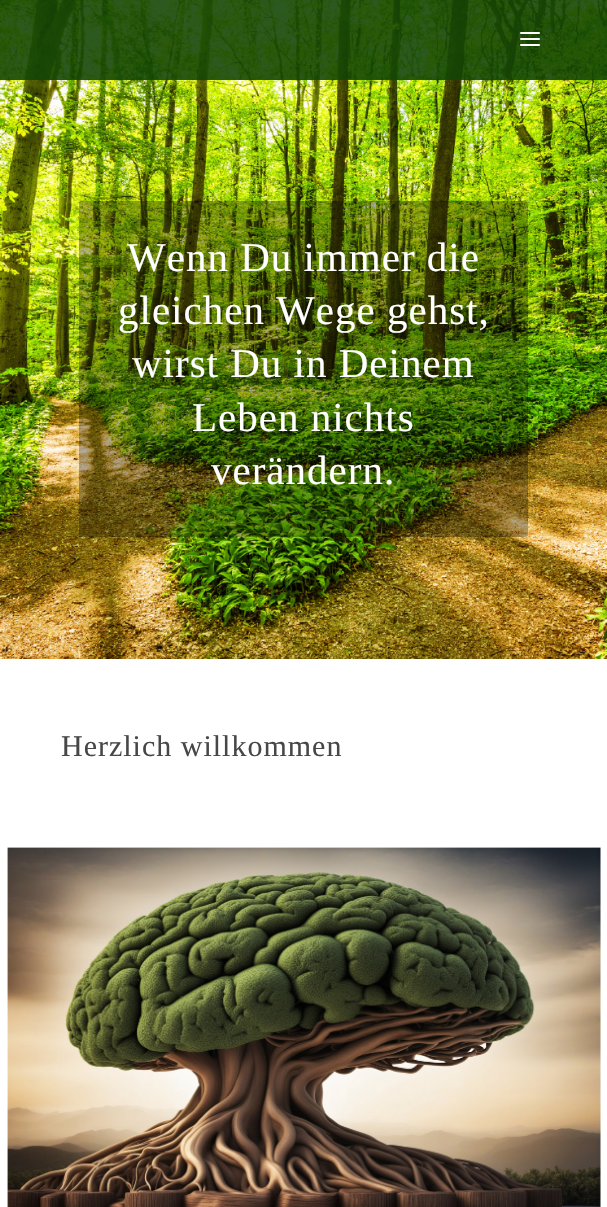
#include "include/core/SkBlurTypes.h"
#include "include/core/SkCanvas.h"
#include "include/core/SkData.h"
#include "include/core/SkFont.h"
#include "include/core/SkFontMgr.h"
#include "include/core/SkImage.h"
#include "include/core/SkMaskFilter.h"
#include "include/core/SkPaint.h"
#include "include/core/SkPathBuilder.h"
#include "include/core/SkTextBlob.h"
#include "include/effects/SkDashPathEffect.h"
#include "include/effects/SkGradientShader.h"
#include "include/utils/SkParsePath.h"

extern sk_sp<SkFontMgr> fontMgr;

static SkFont font(const char* family, int weight, float size, bool italic = false) {
    SkFontStyle style(weight, SkFontStyle::kNormal_Width,
        italic ? SkFontStyle::kItalic_Slant : SkFontStyle::kUpright_Slant);
    SkFont result(fontMgr->matchFamilyStyle(family, style), size);
    result.setSubpixel(true);
    return result;
}

static void drawTracked(SkCanvas* canvas, const char* s, float x, float y, const SkFont& font, const SkPaint& ink, float letter, float word) {
    std::vector<SkGlyphID> glyphs(font.countText(s, strlen(s), SkTextEncoding::kUTF8));
    std::vector<float> xs(glyphs.size());
    font.textToGlyphs(s, strlen(s), SkTextEncoding::kUTF8, glyphs);
    font.getXPos(glyphs, xs, x);
    float extra = 0;
    for (size_t i = 0; i < glyphs.size(); i++) {
        xs[i] += extra;
        extra += letter + word * (glyphs[i] == font.unicharToGlyph(' '));
    }
    canvas->drawTextBlob(SkTextBlob::MakeFromPosHGlyphs(glyphs, xs, y, font), 0, 0, ink);
}

static void fillRect(SkCanvas* canvas, float x, float y, float w, float h, SkColor color) {
    SkPaint ink(SkColor4f::FromColor(color));
    ink.setAntiAlias(true);
    canvas->drawRect(SkRect::MakeXYWH(x, y, w, h), ink);
}

static void fillRRect(SkCanvas* canvas, float x, float y, float w, float h, float radius, SkColor color) {
    SkPaint ink(SkColor4f::FromColor(color));
    ink.setAntiAlias(true);
    canvas->drawRoundRect(SkRect::MakeXYWH(x, y, w, h), radius, radius, ink);
}

static void drawPhoto(SkCanvas* canvas, const char* path, float x, float y, float w, float h) {
    auto image = SkImages::DeferredFromEncodedData(SkData::MakeFromFileName(path));
    canvas->drawImageRect(image, SkRect::MakeXYWH(x, y, w, h), SkSamplingOptions());
}

void draw(SkCanvas* canvas) {
    SkPaint paint;
    paint.setAntiAlias(true);
    canvas->clear(0xFFFFFFFF);
    drawPhoto(canvas, "assets/img2.png", 0, 0, 607, 659);
    fillRect(canvas, 0, 0, 607, 80, 0xE3124404);
    drawPhoto(canvas, "assets/img1.png", 520, 32, 20, 14);
    fillRRect(canvas, 79, 201, 449, 336, 3, 0x4D000000);
    SkFont font1 = font("Liberation Serif", 400, 41);
    paint.setColor(0xFFFFFFFF);
    drawTracked(canvas, "Wenn Du immer die", 127, 271, font1, paint, 1, 0);
    drawTracked(canvas, "gleichen Wege gehst,", 118, 324, font1, paint, 1, 0);
    drawTracked(canvas, "wirst Du in Deinem", 132, 377, font1, paint, 1, 0);
    drawTracked(canvas, "Leben nichts", 192, 431, font1, paint, 1, 0);
    drawTracked(canvas, "verändern.", 211, 484, font1, paint, 1, 0);
    SkFont font2 = font("Liberation Serif", 400, 30);
    paint.setColor(0xFF474747);
    drawTracked(canvas, "Herzlich willkommen", 61, 756, font2, paint, 1, 0);
    drawPhoto(canvas, "assets/img3.png", 7, 847, 594, 360);
}
